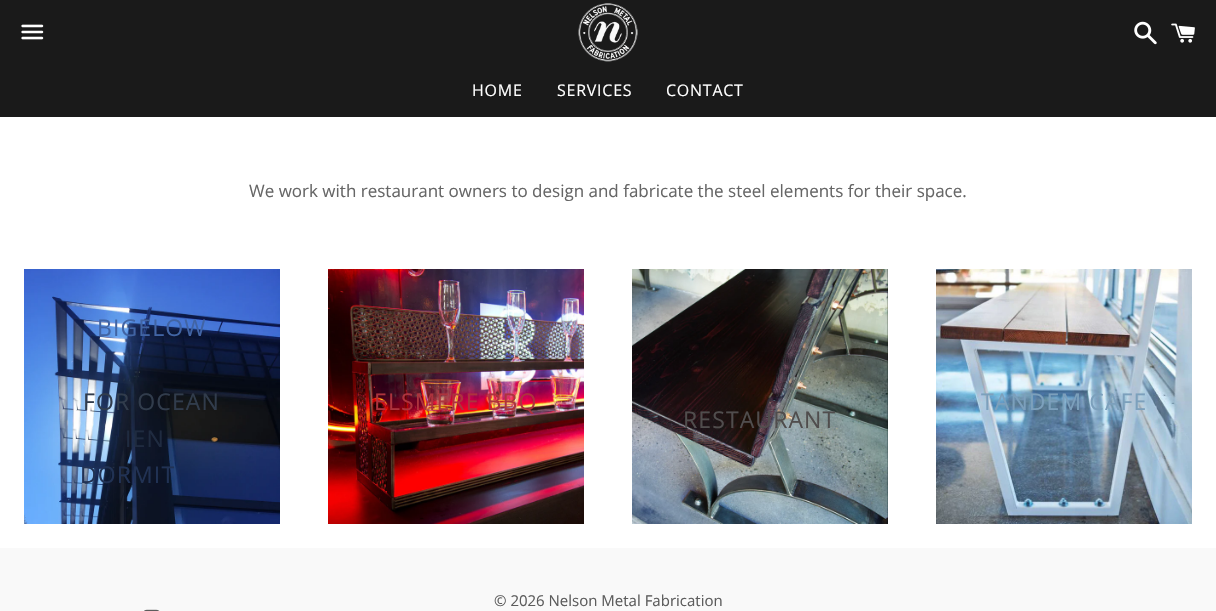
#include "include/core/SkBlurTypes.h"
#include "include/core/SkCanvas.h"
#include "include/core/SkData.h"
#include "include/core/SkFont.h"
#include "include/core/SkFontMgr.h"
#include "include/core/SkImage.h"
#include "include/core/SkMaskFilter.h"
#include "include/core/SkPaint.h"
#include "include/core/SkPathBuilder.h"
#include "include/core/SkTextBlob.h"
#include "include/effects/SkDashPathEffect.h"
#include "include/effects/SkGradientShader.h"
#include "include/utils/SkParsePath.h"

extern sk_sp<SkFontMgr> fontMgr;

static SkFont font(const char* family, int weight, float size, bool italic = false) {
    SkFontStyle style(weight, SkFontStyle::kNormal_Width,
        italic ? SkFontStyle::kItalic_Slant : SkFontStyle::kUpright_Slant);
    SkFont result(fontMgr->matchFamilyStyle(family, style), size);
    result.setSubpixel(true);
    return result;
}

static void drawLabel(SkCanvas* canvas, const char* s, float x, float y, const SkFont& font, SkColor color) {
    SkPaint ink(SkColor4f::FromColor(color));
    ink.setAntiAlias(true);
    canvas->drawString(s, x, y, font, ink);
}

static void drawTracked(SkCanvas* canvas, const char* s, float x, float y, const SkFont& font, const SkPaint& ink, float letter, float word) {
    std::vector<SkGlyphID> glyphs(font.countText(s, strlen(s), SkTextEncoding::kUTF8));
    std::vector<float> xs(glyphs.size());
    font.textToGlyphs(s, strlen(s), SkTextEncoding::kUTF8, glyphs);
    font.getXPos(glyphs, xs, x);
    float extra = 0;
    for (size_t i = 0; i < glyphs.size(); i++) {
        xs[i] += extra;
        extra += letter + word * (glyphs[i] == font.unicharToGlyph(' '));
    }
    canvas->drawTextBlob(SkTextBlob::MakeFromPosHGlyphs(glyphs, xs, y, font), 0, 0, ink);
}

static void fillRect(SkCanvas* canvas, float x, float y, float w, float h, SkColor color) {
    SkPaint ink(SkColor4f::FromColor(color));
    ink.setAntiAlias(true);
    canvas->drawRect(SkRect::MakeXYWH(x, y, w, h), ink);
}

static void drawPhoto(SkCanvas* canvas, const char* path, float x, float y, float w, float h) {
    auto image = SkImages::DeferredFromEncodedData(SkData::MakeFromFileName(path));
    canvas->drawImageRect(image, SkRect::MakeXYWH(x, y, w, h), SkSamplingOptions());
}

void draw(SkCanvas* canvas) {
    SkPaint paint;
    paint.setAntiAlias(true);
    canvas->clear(0xFFFFFFFF);
    fillRect(canvas, 0, 0, 1216, 117, 0xFF1A1A1A);
    drawPhoto(canvas, "assets/img1.png", 21, 24, 23, 16);
    drawPhoto(canvas, "assets/img2.png", 578, 3, 60, 59);
    drawPhoto(canvas, "assets/img3.png", 1134, 21, 23, 24);
    drawPhoto(canvas, "assets/img4.png", 1171, 23, 24, 20);
    SkFont font1 = font("Open Sans", 400, 16);
    paint.setColor(0xFFFFFFFF);
    drawTracked(canvas, "HOME", 472, 96, font1, paint, 0.75f, 0);
    drawTracked(canvas, "SERVICES", 557, 96, font1, paint, 0.75f, 0);
    drawTracked(canvas, "CONTACT", 666, 96, font1, paint, 0.75f, 0);
    SkFont font2 = font("Open Sans", 400, 17);
    drawLabel(canvas, "We work with restaurant owners to design and fabricate the steel elements for their space.", 249, 197, font2, 0xFF666666);
    drawPhoto(canvas, "assets/img5.png", 24, 269, 256, 255);
    SkFont font3 = font("Open Sans", 400, 23);
    paint.setColor(0xFF4164A4);
    drawTracked(canvas, "BIGELOW", 97, 336, font3, paint, 1.1f, 0);
    paint.setColor(0xFF313C4C);
    drawTracked(canvas, "FOR OCEAN", 83, 410, font3, paint, 1.1f, 0);
    paint.setColor(0xFF1F2B40);
    drawTracked(canvas, "IEN", 125, 447, font3, paint, 1.1f, 0);
    paint.setColor(0xFF213254);
    drawTracked(canvas, "DORMIT", 80, 483, font3, paint, 1.1f, 0);
    drawPhoto(canvas, "assets/img6.png", 328, 269, 256, 255);
    paint.setColor(0xFFAD333D);
    drawTracked(canvas, "ELSMERE BBQ", 374, 410, font3, paint, 1.1f, 0);
    drawPhoto(canvas, "assets/img7.png", 936, 269, 256, 255);
    paint.setColor(0xFF7CA0BC);
    drawTracked(canvas, "TANDEM CAFE", 981, 410, font3, paint, 1.1f, 0);
    drawPhoto(canvas, "assets/img8.png", 632, 269, 256, 255);
    paint.setColor(0xFF504D4D);
    drawTracked(canvas, "RESTAURANT", 683, 428, font3, paint, 1.1f, 0);
    fillRect(canvas, 0, 548, 1216, 63, 0xFFF9F9F9);
    SkFont font4 = font("Open Sans", 400, 15);
    drawLabel(canvas, "© 2026 Nelson Metal Fabrication", 494, 606, font4, 0xFF5C5C5C);
    drawPhoto(canvas, "assets/img9.png", 144, 609, 16, 2);
}
